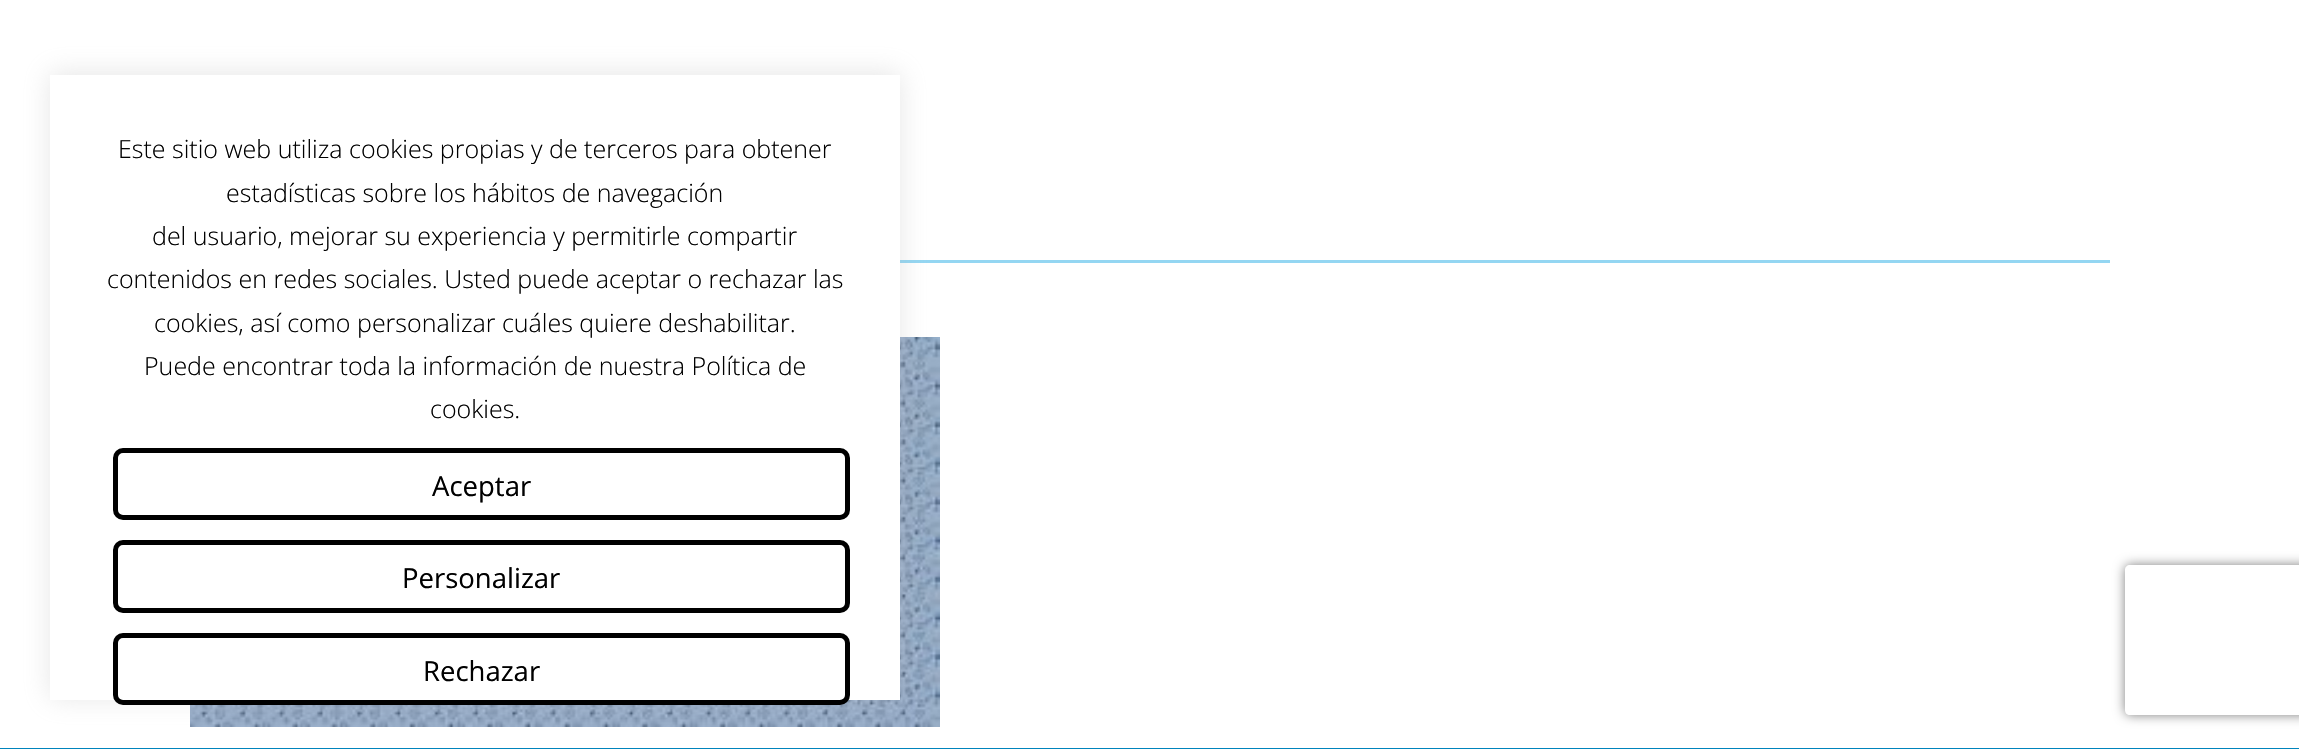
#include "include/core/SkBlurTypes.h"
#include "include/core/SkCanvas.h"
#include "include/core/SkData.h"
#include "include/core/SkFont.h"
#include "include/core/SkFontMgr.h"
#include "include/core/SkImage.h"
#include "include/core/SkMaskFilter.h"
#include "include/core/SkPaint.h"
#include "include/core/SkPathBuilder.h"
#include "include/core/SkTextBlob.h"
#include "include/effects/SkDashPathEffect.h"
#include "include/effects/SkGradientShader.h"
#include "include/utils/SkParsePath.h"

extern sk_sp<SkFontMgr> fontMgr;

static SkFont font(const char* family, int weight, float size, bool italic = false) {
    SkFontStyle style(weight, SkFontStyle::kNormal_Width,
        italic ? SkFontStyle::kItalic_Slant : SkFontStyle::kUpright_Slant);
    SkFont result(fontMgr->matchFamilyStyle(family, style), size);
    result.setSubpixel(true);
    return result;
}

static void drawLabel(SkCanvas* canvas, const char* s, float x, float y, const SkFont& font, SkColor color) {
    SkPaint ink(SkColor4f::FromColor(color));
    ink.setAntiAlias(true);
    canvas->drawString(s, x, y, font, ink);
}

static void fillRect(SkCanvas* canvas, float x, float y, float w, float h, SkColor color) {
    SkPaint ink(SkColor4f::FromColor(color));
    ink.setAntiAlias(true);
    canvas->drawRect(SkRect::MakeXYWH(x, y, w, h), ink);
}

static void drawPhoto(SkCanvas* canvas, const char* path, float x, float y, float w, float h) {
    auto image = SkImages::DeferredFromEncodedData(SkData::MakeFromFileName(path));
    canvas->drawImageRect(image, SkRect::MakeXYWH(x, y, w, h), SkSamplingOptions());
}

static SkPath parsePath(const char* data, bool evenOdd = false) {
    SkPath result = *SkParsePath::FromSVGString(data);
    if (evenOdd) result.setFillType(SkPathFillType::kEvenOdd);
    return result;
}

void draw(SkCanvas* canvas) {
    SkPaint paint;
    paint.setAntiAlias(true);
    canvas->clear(0xFFFFFFFF);
    fillRect(canvas, 900, 260, 1210, 3, 0xFF94D6F2);
    drawPhoto(canvas, "assets/img1.png", 190, 337, 750, 390);
    paint.setColor(0x4DACABAB);
    paint.setMaskFilter(SkMaskFilter::MakeBlur(kNormal_SkBlurStyle, 12.5f));
    canvas->drawRect(SkRect::MakeXYWH(50, 73, 850, 625), paint);
    paint.setMaskFilter(nullptr);
    fillRect(canvas, 50, 75, 850, 625, 0xFFFFFFFF);
    SkFont font1 = font("Open Sans", 300, 25);
    drawLabel(canvas, "Este sitio web utiliza cookies propias y de terceros para obtener", 118, 158, font1, 0xFF000000);
    drawLabel(canvas, "estadísticas sobre los hábitos de navegación", 226, 202, font1, 0xFF000000);
    drawLabel(canvas, "del usuario, mejorar su experiencia y permitirle compartir", 152, 245, font1, 0xFF000000);
    drawLabel(canvas, "contenidos en redes sociales. Usted puede aceptar o rechazar las", 107, 288, font1, 0xFF000000);
    drawLabel(canvas, "cookies, así como personalizar cuáles quiere deshabilitar.", 154, 332, font1, 0xFF000000);
    drawLabel(canvas, "Puede encontrar toda la información de nuestra Política de", 144, 375, font1, 0xFF000000);
    drawLabel(canvas, "cookies.", 430, 418, font1, 0xFF000000);
    paint.setStroke(true);
    paint.setStrokeWidth(5);
    paint.setColor(0xFF000000);
    canvas->drawRoundRect(SkRect::MakeXYWH(115.5f, 450.5f, 732, 67), 7.5f, 7.5f, paint);
    SkFont font2 = font("Open Sans", 400, 27.5f);
    drawLabel(canvas, "Aceptar", 432, 496, font2, 0xFF000000);
    canvas->drawRoundRect(SkRect::MakeXYWH(115.5f, 542.5f, 732, 68), 7.5f, 7.5f, paint);
    drawLabel(canvas, "Personalizar", 402, 588, font2, 0xFF000000);
    paint.setStroke(false);
    paint.setColor(0xFFFFFFFF);
    canvas->drawRoundRect(SkRect::MakeXYWH(115.5f, 635.5f, 732, 67), 7.5f, 7.5f, paint);
    paint.setStroke(true);
    paint.setColor(0xFF000000);
    canvas->drawRoundRect(SkRect::MakeXYWH(115.5f, 635.5f, 732, 67), 7.5f, 7.5f, paint);
    drawLabel(canvas, "Rechazar", 423, 681, font2, 0xFF000000);
    fillRect(canvas, 0, 748, 2299, 1, 0xFF0084BC);
    canvas->save();
    canvas->clipPath(parsePath("M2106 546H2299V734H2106ZM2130 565H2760C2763 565 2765 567 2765 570V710C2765 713 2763 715 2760 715H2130C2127 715 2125 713 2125 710V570C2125 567 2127 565 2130 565Z", true), true);
    paint.setStroke(false);
    paint.setColor(0xFF808080);
    paint.setMaskFilter(SkMaskFilter::MakeBlur(kNormal_SkBlurStyle, 6));
    canvas->drawRoundRect(SkRect::MakeXYWH(2125, 565, 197, 150), 5, 5, paint);
    paint.setMaskFilter(nullptr);
    canvas->restore();
}
